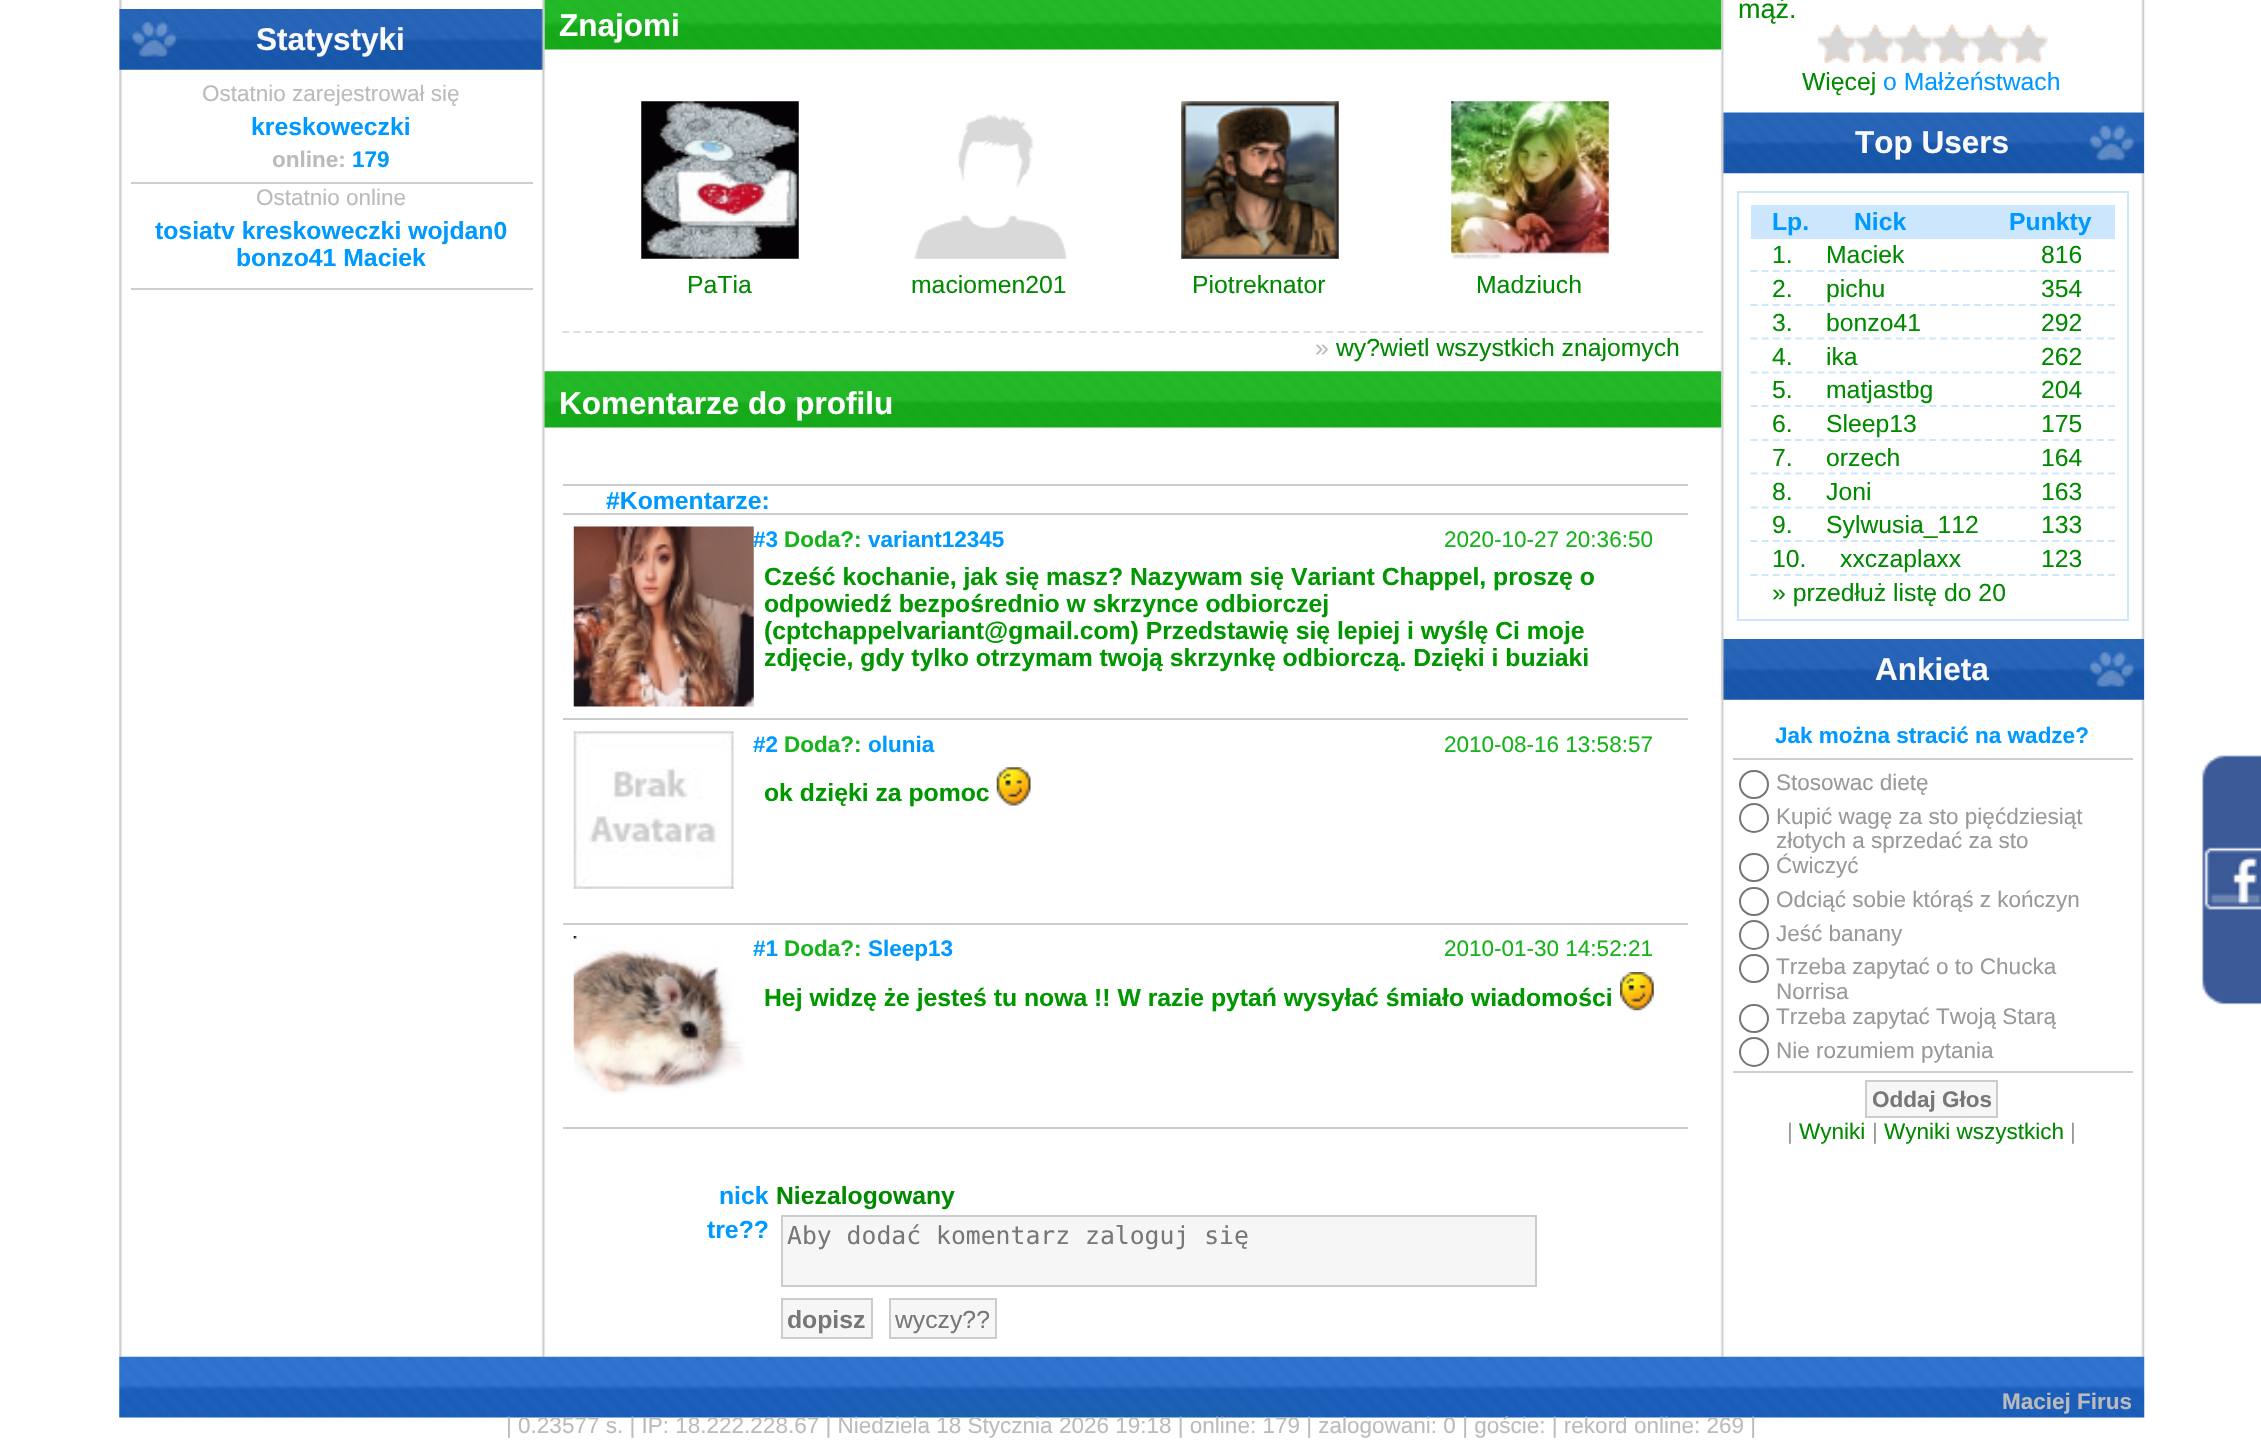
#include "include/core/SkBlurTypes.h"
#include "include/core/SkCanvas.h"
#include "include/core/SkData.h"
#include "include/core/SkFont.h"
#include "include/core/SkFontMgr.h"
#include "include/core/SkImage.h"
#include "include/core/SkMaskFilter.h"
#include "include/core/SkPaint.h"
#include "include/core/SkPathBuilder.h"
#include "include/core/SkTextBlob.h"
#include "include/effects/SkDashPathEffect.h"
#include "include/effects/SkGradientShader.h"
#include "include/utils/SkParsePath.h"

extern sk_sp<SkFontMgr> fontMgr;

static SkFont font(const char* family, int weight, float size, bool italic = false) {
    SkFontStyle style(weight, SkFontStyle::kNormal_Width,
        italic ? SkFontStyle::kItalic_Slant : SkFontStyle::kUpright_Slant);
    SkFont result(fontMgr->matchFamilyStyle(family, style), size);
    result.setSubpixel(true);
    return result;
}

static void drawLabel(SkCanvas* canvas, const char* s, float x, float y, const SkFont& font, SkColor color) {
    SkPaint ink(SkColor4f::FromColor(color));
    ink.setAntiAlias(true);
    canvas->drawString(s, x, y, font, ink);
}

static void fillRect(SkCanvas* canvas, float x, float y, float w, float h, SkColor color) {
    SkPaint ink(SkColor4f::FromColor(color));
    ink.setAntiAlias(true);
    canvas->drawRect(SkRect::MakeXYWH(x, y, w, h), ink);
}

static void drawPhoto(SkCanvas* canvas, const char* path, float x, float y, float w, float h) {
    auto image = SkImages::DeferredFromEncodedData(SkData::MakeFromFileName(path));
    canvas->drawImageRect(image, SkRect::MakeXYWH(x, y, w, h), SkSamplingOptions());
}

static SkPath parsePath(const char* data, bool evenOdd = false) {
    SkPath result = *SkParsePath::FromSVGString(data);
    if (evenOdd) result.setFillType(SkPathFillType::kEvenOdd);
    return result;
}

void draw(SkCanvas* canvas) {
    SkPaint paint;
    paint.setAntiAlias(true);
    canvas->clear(0xFFFFFFFF);
    drawPhoto(canvas, "assets/img1.png", 119, 0, 2026, 1357);
    drawPhoto(canvas, "assets/img3.png", 544, 0, 1178, 50);
    drawPhoto(canvas, "assets/img2.png", 119, 9, 426, 61);
    SkFont font1 = font("Liberation Sans", 700, 31.5f);
    drawLabel(canvas, "Statystyki", 256, 50, font1, 0xFFF9F9F9);
    fillRect(canvas, 131, 182, 402, 2, 0xFFCDCFCE);
    SkFont font2 = font("Liberation Sans", 400, 22.5f);
    drawLabel(canvas, "Ostatnio zarejestrował się", 202, 101, font2, 0xFFBBBBBB);
    SkFont font3 = font("Liberation Sans", 700, 24.75f);
    drawLabel(canvas, "kreskoweczki", 251, 135, font3, 0xFF0099FF);
    SkFont font4 = font("Liberation Sans", 700, 22.5f);
    drawLabel(canvas, "online:", 272, 167, font4, 0xFFBBBBBB);
    drawLabel(canvas, "179", 352, 167, font4, 0xFF0099FF);
    fillRect(canvas, 131, 288, 402, 2, 0xFFCDCFCE);
    drawLabel(canvas, "Ostatnio online", 256, 205, font2, 0xFFBBBBBB);
    drawLabel(canvas, "tosiatv kreskoweczki wojdan0", 155, 239, font3, 0xFF0099FF);
    drawLabel(canvas, "bonzo41 Maciek", 236, 266, font3, 0xFF0099FF);
    drawLabel(canvas, "Znajomi", 559, 36, font1, 0xFFFFFFFF);
    drawPhoto(canvas, "assets/img4.png", 641, 101, 158, 158);
    SkFont font5 = font("Liberation Sans", 400, 24.75f);
    drawLabel(canvas, "PaTia", 687, 293, font5, 0xFF008A00);
    drawPhoto(canvas, "assets/img5.png", 914, 114, 154, 145);
    drawLabel(canvas, "maciomen201", 911, 293, font5, 0xFF008A00);
    drawPhoto(canvas, "assets/img6.png", 1181, 101, 158, 158);
    drawLabel(canvas, "Piotreknator", 1192, 293, font5, 0xFF008A00);
    drawPhoto(canvas, "assets/img7.png", 1451, 101, 158, 158);
    drawLabel(canvas, "Madziuch", 1476, 293, font5, 0xFF008A00);
    paint.setStroke(true);
    paint.setStrokeWidth(2.2f);
    paint.setColor(0xFFDDDDDD);
    paint.setPathEffect(SkDashPathEffect::Make({{6.75f, 4.48f}}, 0));
    canvas->drawPath(parsePath("M562.5 332H1703"), paint);
    paint.setPathEffect(nullptr);
    drawLabel(canvas, "»", 1315, 356, font5, 0xFFBBBBBB);
    drawLabel(canvas, "wy?wietl wszystkich znajomych", 1336, 356, font5, 0xFF008A00);
    drawPhoto(canvas, "assets/img8.png", 544, 371, 1178, 57);
    drawLabel(canvas, "Komentarze do profilu", 559, 414, font1, 0xFFFFFFFF);
    fillRect(canvas, 563, 484, 1125, 2, 0xFFCCCCCC);
    fillRect(canvas, 563, 513, 1125, 2, 0xFFCCCCCC);
    drawLabel(canvas, "#Komentarze:", 606, 509, font3, 0xFF0099FF);
    fillRect(canvas, 563, 718, 1125, 2, 0xFFCCCCCC);
    drawPhoto(canvas, "assets/img9.png", 573, 526, 181, 181);
    drawLabel(canvas, "#3", 753, 547, font4, 0xFF0099FF);
    drawLabel(canvas, "Doda?:", 784, 547, font4, 0xFF16B41A);
    drawLabel(canvas, "variant12345", 868, 547, font4, 0xFF0099FF);
    drawLabel(canvas, "2020-10-27 20:36:50", 1444, 547, font2, 0xFF16B41A);
    drawLabel(canvas, "Cześć kochanie, jak się masz? Nazywam się Variant Chappel, proszę o", 764, 585, font3, 0xFF009700);
    drawLabel(canvas, "odpowiedź bezpośrednio w skrzynce odbiorczej", 764, 612, font3, 0xFF009700);
    drawLabel(canvas, "(cptchappelvariant@gmail.com) Przedstawię się lepiej i wyślę Ci moje", 764, 639, font3, 0xFF009700);
    drawLabel(canvas, "zdjęcie, gdy tylko otrzymam twoją skrzynkę odbiorczą. Dzięki i buziaki", 764, 666, font3, 0xFF009700);
    fillRect(canvas, 563, 923, 1125, 2, 0xFFCCCCCC);
    drawPhoto(canvas, "assets/img10.png", 573, 731, 161, 158);
    drawLabel(canvas, "#2", 753, 752, font4, 0xFF0099FF);
    drawLabel(canvas, "Doda?:", 784, 752, font4, 0xFF16B41A);
    drawLabel(canvas, "olunia", 868, 752, font4, 0xFF0099FF);
    drawLabel(canvas, "2010-08-16 13:58:57", 1444, 752, font2, 0xFF16B41A);
    drawLabel(canvas, "ok dzięki za pomoc", 764, 801, font3, 0xFF009700);
    drawPhoto(canvas, "assets/img11.png", 996, 767, 35, 39);
    fillRect(canvas, 563, 1127, 1125, 2, 0xFFCCCCCC);
    drawPhoto(canvas, "assets/img12.png", 573, 936, 172, 159);
    drawLabel(canvas, "#1", 753, 956, font4, 0xFF0099FF);
    drawLabel(canvas, "Doda?:", 784, 956, font4, 0xFF16B41A);
    drawLabel(canvas, "Sleep13", 868, 956, font4, 0xFF0099FF);
    drawLabel(canvas, "2010-01-30 14:52:21", 1444, 956, font2, 0xFF16B41A);
    drawLabel(canvas, "Hej widzę że jesteś tu nowa !! W razie pytań wysyłać śmiało wiadomości", 764, 1006, font3, 0xFF009700);
    drawPhoto(canvas, "assets/img13.png", 1620, 972, 34, 39);
    drawLabel(canvas, "nick", 719, 1204, font3, 0xFF0099FF);
    drawLabel(canvas, "Niezalogowany", 776, 1204, font3, 0xFF008A00);
    drawLabel(canvas, "tre?\077", 707, 1238, font3, 0xFF0099FF);
    paint.setStroke(false);
    paint.setColor(0xFFF6F6F6);
    canvas->drawRect(SkRect::MakeXYWH(782, 1216, 754, 70), paint);
    paint.setStroke(true);
    paint.setStrokeWidth(2);
    paint.setColor(0xFFCCCCCC);
    canvas->drawRect(SkRect::MakeXYWH(782, 1216, 754, 70), paint);
    SkFont font6 = font("DejaVu Sans Mono", 400, 24.75f);
    drawLabel(canvas, "Aby dodać komentarz zaloguj się", 787, 1244, font6, 0xFF777777);
    paint.setStroke(false);
    paint.setColor(0xFFF6F6F6);
    canvas->drawRect(SkRect::MakeXYWH(782, 1299, 90, 39), paint);
    paint.setStroke(true);
    paint.setColor(0xFFCCCCCC);
    canvas->drawRect(SkRect::MakeXYWH(782, 1299, 90, 39), paint);
    drawLabel(canvas, "dopisz", 787, 1328, font3, 0xFF777777);
    paint.setStroke(false);
    paint.setColor(0xFFF6F6F6);
    canvas->drawRect(SkRect::MakeXYWH(890, 1299, 106, 39), paint);
    paint.setStroke(true);
    paint.setColor(0xFFCCCCCC);
    canvas->drawRect(SkRect::MakeXYWH(890, 1299, 106, 39), paint);
    drawLabel(canvas, "wyczy?\077", 895, 1328, font5, 0xFF777777);
    SkFont font7 = font("Liberation Sans", 400, 27);
    drawLabel(canvas, "mąż.", 1738, 18, font7, 0xFF008A00);
    drawPhoto(canvas, "assets/img14.png", 1818, 24, 39, 39);
    drawPhoto(canvas, "assets/img15.png", 1856, 24, 39, 39);
    drawPhoto(canvas, "assets/img16.png", 1894, 24, 39, 39);
    drawPhoto(canvas, "assets/img17.png", 1932, 24, 39, 39);
    drawPhoto(canvas, "assets/img14.png", 1971, 24, 39, 39);
    drawPhoto(canvas, "assets/img18.png", 2009, 24, 39, 39);
    drawLabel(canvas, "Więcej", 1802, 90, font5, 0xFF008A00);
    drawLabel(canvas, "o Małżeństwach", 1883, 90, font5, 0xFF0099FF);
    drawPhoto(canvas, "assets/img19.png", 1721, 112, 424, 62);
    drawLabel(canvas, "Top Users", 1855, 153, font1, 0xFFF9F9F9);
    paint.setColor(0xFFCCE7FD);
    canvas->drawRect(SkRect::MakeXYWH(1738, 192, 390, 428), paint);
    fillRect(canvas, 1751, 205, 364, 34, 0xFFCCE7FD);
    paint.setStrokeWidth(2.2f);
    paint.setPathEffect(SkDashPathEffect::Make({{6.75f, 4.43f}}, 0));
    canvas->drawPath(parsePath("M1750.5 237.5H2115"), paint);
    paint.setPathEffect(nullptr);
    drawLabel(canvas, "Lp.", 1772, 230, font3, 0xFF0099FF);
    drawLabel(canvas, "Nick", 1854, 230, font3, 0xFF0099FF);
    drawLabel(canvas, "Punkty", 2009, 230, font3, 0xFF0099FF);
    paint.setPathEffect(SkDashPathEffect::Make({{6.75f, 4.43f}}, 0));
    canvas->drawPath(parsePath("M1750.5 271H2115"), paint);
    paint.setPathEffect(nullptr);
    drawLabel(canvas, "1.", 1772, 263, font5, 0xFF008A00);
    drawLabel(canvas, "Maciek", 1826, 263, font5, 0xFF008A00);
    drawLabel(canvas, "816", 2041, 263, font5, 0xFF008A00);
    paint.setPathEffect(SkDashPathEffect::Make({{6.75f, 4.43f}}, 0));
    canvas->drawPath(parsePath("M1750.5 305H2115"), paint);
    paint.setPathEffect(nullptr);
    drawLabel(canvas, "2.", 1772, 297, font5, 0xFF008A00);
    drawLabel(canvas, "pichu", 1826, 297, font5, 0xFF008A00);
    drawLabel(canvas, "354", 2041, 297, font5, 0xFF008A00);
    paint.setPathEffect(SkDashPathEffect::Make({{6.75f, 4.43f}}, 0));
    canvas->drawPath(parsePath("M1750.5 338.5H2115"), paint);
    paint.setPathEffect(nullptr);
    drawLabel(canvas, "3.", 1772, 331, font5, 0xFF008A00);
    drawLabel(canvas, "bonzo41", 1826, 331, font5, 0xFF008A00);
    drawLabel(canvas, "292", 2041, 331, font5, 0xFF008A00);
    paint.setPathEffect(SkDashPathEffect::Make({{6.75f, 4.43f}}, 0));
    canvas->drawPath(parsePath("M1750.5 372.5H2115"), paint);
    paint.setPathEffect(nullptr);
    drawLabel(canvas, "4.", 1772, 365, font5, 0xFF008A00);
    drawLabel(canvas, "ika", 1826, 365, font5, 0xFF008A00);
    drawLabel(canvas, "262", 2041, 365, font5, 0xFF008A00);
    paint.setPathEffect(SkDashPathEffect::Make({{6.75f, 4.43f}}, 0));
    canvas->drawPath(parsePath("M1750.5 406H2115"), paint);
    paint.setPathEffect(nullptr);
    drawLabel(canvas, "5.", 1772, 398, font5, 0xFF008A00);
    drawLabel(canvas, "matjastbg", 1826, 398, font5, 0xFF008A00);
    drawLabel(canvas, "204", 2041, 398, font5, 0xFF008A00);
    paint.setPathEffect(SkDashPathEffect::Make({{6.75f, 4.43f}}, 0));
    canvas->drawPath(parsePath("M1750.5 440H2115"), paint);
    paint.setPathEffect(nullptr);
    drawLabel(canvas, "6.", 1772, 432, font5, 0xFF008A00);
    drawLabel(canvas, "Sleep13", 1826, 432, font5, 0xFF008A00);
    drawLabel(canvas, "175", 2041, 432, font5, 0xFF008A00);
    paint.setPathEffect(SkDashPathEffect::Make({{6.75f, 4.43f}}, 0));
    canvas->drawPath(parsePath("M1750.5 473.5H2115"), paint);
    paint.setPathEffect(nullptr);
    drawLabel(canvas, "7.", 1772, 466, font5, 0xFF008A00);
    drawLabel(canvas, "orzech", 1826, 466, font5, 0xFF008A00);
    drawLabel(canvas, "164", 2041, 466, font5, 0xFF008A00);
    paint.setPathEffect(SkDashPathEffect::Make({{6.75f, 4.43f}}, 0));
    canvas->drawPath(parsePath("M1750.5 507.5H2115"), paint);
    paint.setPathEffect(nullptr);
    drawLabel(canvas, "8.", 1772, 500, font5, 0xFF008A00);
    drawLabel(canvas, "Joni", 1826, 500, font5, 0xFF008A00);
    drawLabel(canvas, "163", 2041, 500, font5, 0xFF008A00);
    paint.setPathEffect(SkDashPathEffect::Make({{6.75f, 4.43f}}, 0));
    canvas->drawPath(parsePath("M1750.5 541H2115"), paint);
    paint.setPathEffect(nullptr);
    drawLabel(canvas, "9.", 1772, 533, font5, 0xFF008A00);
    drawLabel(canvas, "Sylwusia_112", 1826, 533, font5, 0xFF008A00);
    drawLabel(canvas, "133", 2041, 533, font5, 0xFF008A00);
    paint.setPathEffect(SkDashPathEffect::Make({{6.75f, 4.43f}}, 0));
    canvas->drawPath(parsePath("M1750.5 575H2115"), paint);
    paint.setPathEffect(nullptr);
    drawLabel(canvas, "10.", 1772, 567, font5, 0xFF008A00);
    drawLabel(canvas, "xxczaplaxx", 1840, 567, font5, 0xFF008A00);
    drawLabel(canvas, "123", 2041, 567, font5, 0xFF008A00);
    drawLabel(canvas, "» przedłuż listę do 20", 1772, 601, font5, 0xFF008A00);
    drawPhoto(canvas, "assets/img20.png", 1721, 639, 424, 61);
    drawLabel(canvas, "Ankieta", 1875, 680, font1, 0xFFF9F9F9);
    fillRect(canvas, 1733, 758, 400, 2, 0xFFCDCFCE);
    drawLabel(canvas, "Jak można stracić na wadze?", 1775, 743, font4, 0xFF0099FF);
    paint.setStrokeWidth(2);
    paint.setColor(0xFF767676);
    canvas->drawRoundRect(SkRect::MakeXYWH(1740, 771, 28, 27), 13.5f, 13.5f, paint);
    drawLabel(canvas, "Stosowac dietę", 1776, 790, font2, 0xFF999999);
    canvas->drawCircle(1754, 818, 14, paint);
    drawLabel(canvas, "Kupić wagę za sto pięćdziesiąt", 1776, 824, font2, 0xFF999999);
    drawLabel(canvas, "złotych a sprzedać za sto", 1776, 848, font2, 0xFF999999);
    canvas->drawRoundRect(SkRect::MakeXYWH(1740, 854, 28, 27), 13.5f, 13.5f, paint);
    drawLabel(canvas, "Ćwiczyć", 1776, 873, font2, 0xFF999999);
    canvas->drawRoundRect(SkRect::MakeXYWH(1740, 888, 28, 27), 13.5f, 13.5f, paint);
    drawLabel(canvas, "Odciąć sobie którąś z kończyn", 1776, 907, font2, 0xFF999999);
    canvas->drawCircle(1754, 935, 14, paint);
    drawLabel(canvas, "Jeść banany", 1776, 941, font2, 0xFF999999);
    canvas->drawRoundRect(SkRect::MakeXYWH(1740, 955, 28, 27), 13.5f, 13.5f, paint);
    drawLabel(canvas, "Trzeba zapytać o to Chucka", 1776, 974, font2, 0xFF999999);
    drawLabel(canvas, "Norrisa", 1776, 999, font2, 0xFF999999);
    canvas->drawRoundRect(SkRect::MakeXYWH(1740, 1005, 28, 27), 13.5f, 13.5f, paint);
    drawLabel(canvas, "Trzeba zapytać Twoją Starą", 1776, 1024, font2, 0xFF999999);
    canvas->drawCircle(1754, 1052, 14, paint);
    drawLabel(canvas, "Nie rozumiem pytania", 1776, 1058, font2, 0xFF999999);
    fillRect(canvas, 1733, 1071, 400, 2, 0xFFCDCFCE);
    paint.setStroke(false);
    paint.setColor(0xFFF6F6F6);
    canvas->drawRect(SkRect::MakeXYWH(1866, 1081, 131, 36), paint);
    paint.setStroke(true);
    paint.setColor(0xFFCCCCCC);
    canvas->drawRect(SkRect::MakeXYWH(1866, 1081, 131, 36), paint);
    drawLabel(canvas, "Oddaj Głos", 1872, 1107, font4, 0xFF777777);
    drawLabel(canvas, "|", 1787, 1139, font2, 0xFF999999);
    drawLabel(canvas, "Wyniki", 1799, 1139, font2, 0xFF008A00);
    drawLabel(canvas, "|", 1872, 1139, font2, 0xFF999999);
    drawLabel(canvas, "Wyniki wszystkich", 1884, 1139, font2, 0xFF008A00);
    drawLabel(canvas, "|", 2070, 1139, font2, 0xFF999999);
    drawPhoto(canvas, "assets/img21.png", 119, 1356, 2026, 62);
    drawLabel(canvas, "Maciej Firus", 2002, 1409, font4, 0xFFBBBBBB);
    drawLabel(canvas, "| 0.23577 s. | IP: 18.222.228.67 | Niedziela 18 Stycznia 2026 19:18 | online: 179 | zalogowani: 0 | goście: | rekord online: 269 |", 506, 1433, font2, 0xFFBBBBBB);
    drawPhoto(canvas, "assets/img22.png", 2202, 755, 59, 250);
}
